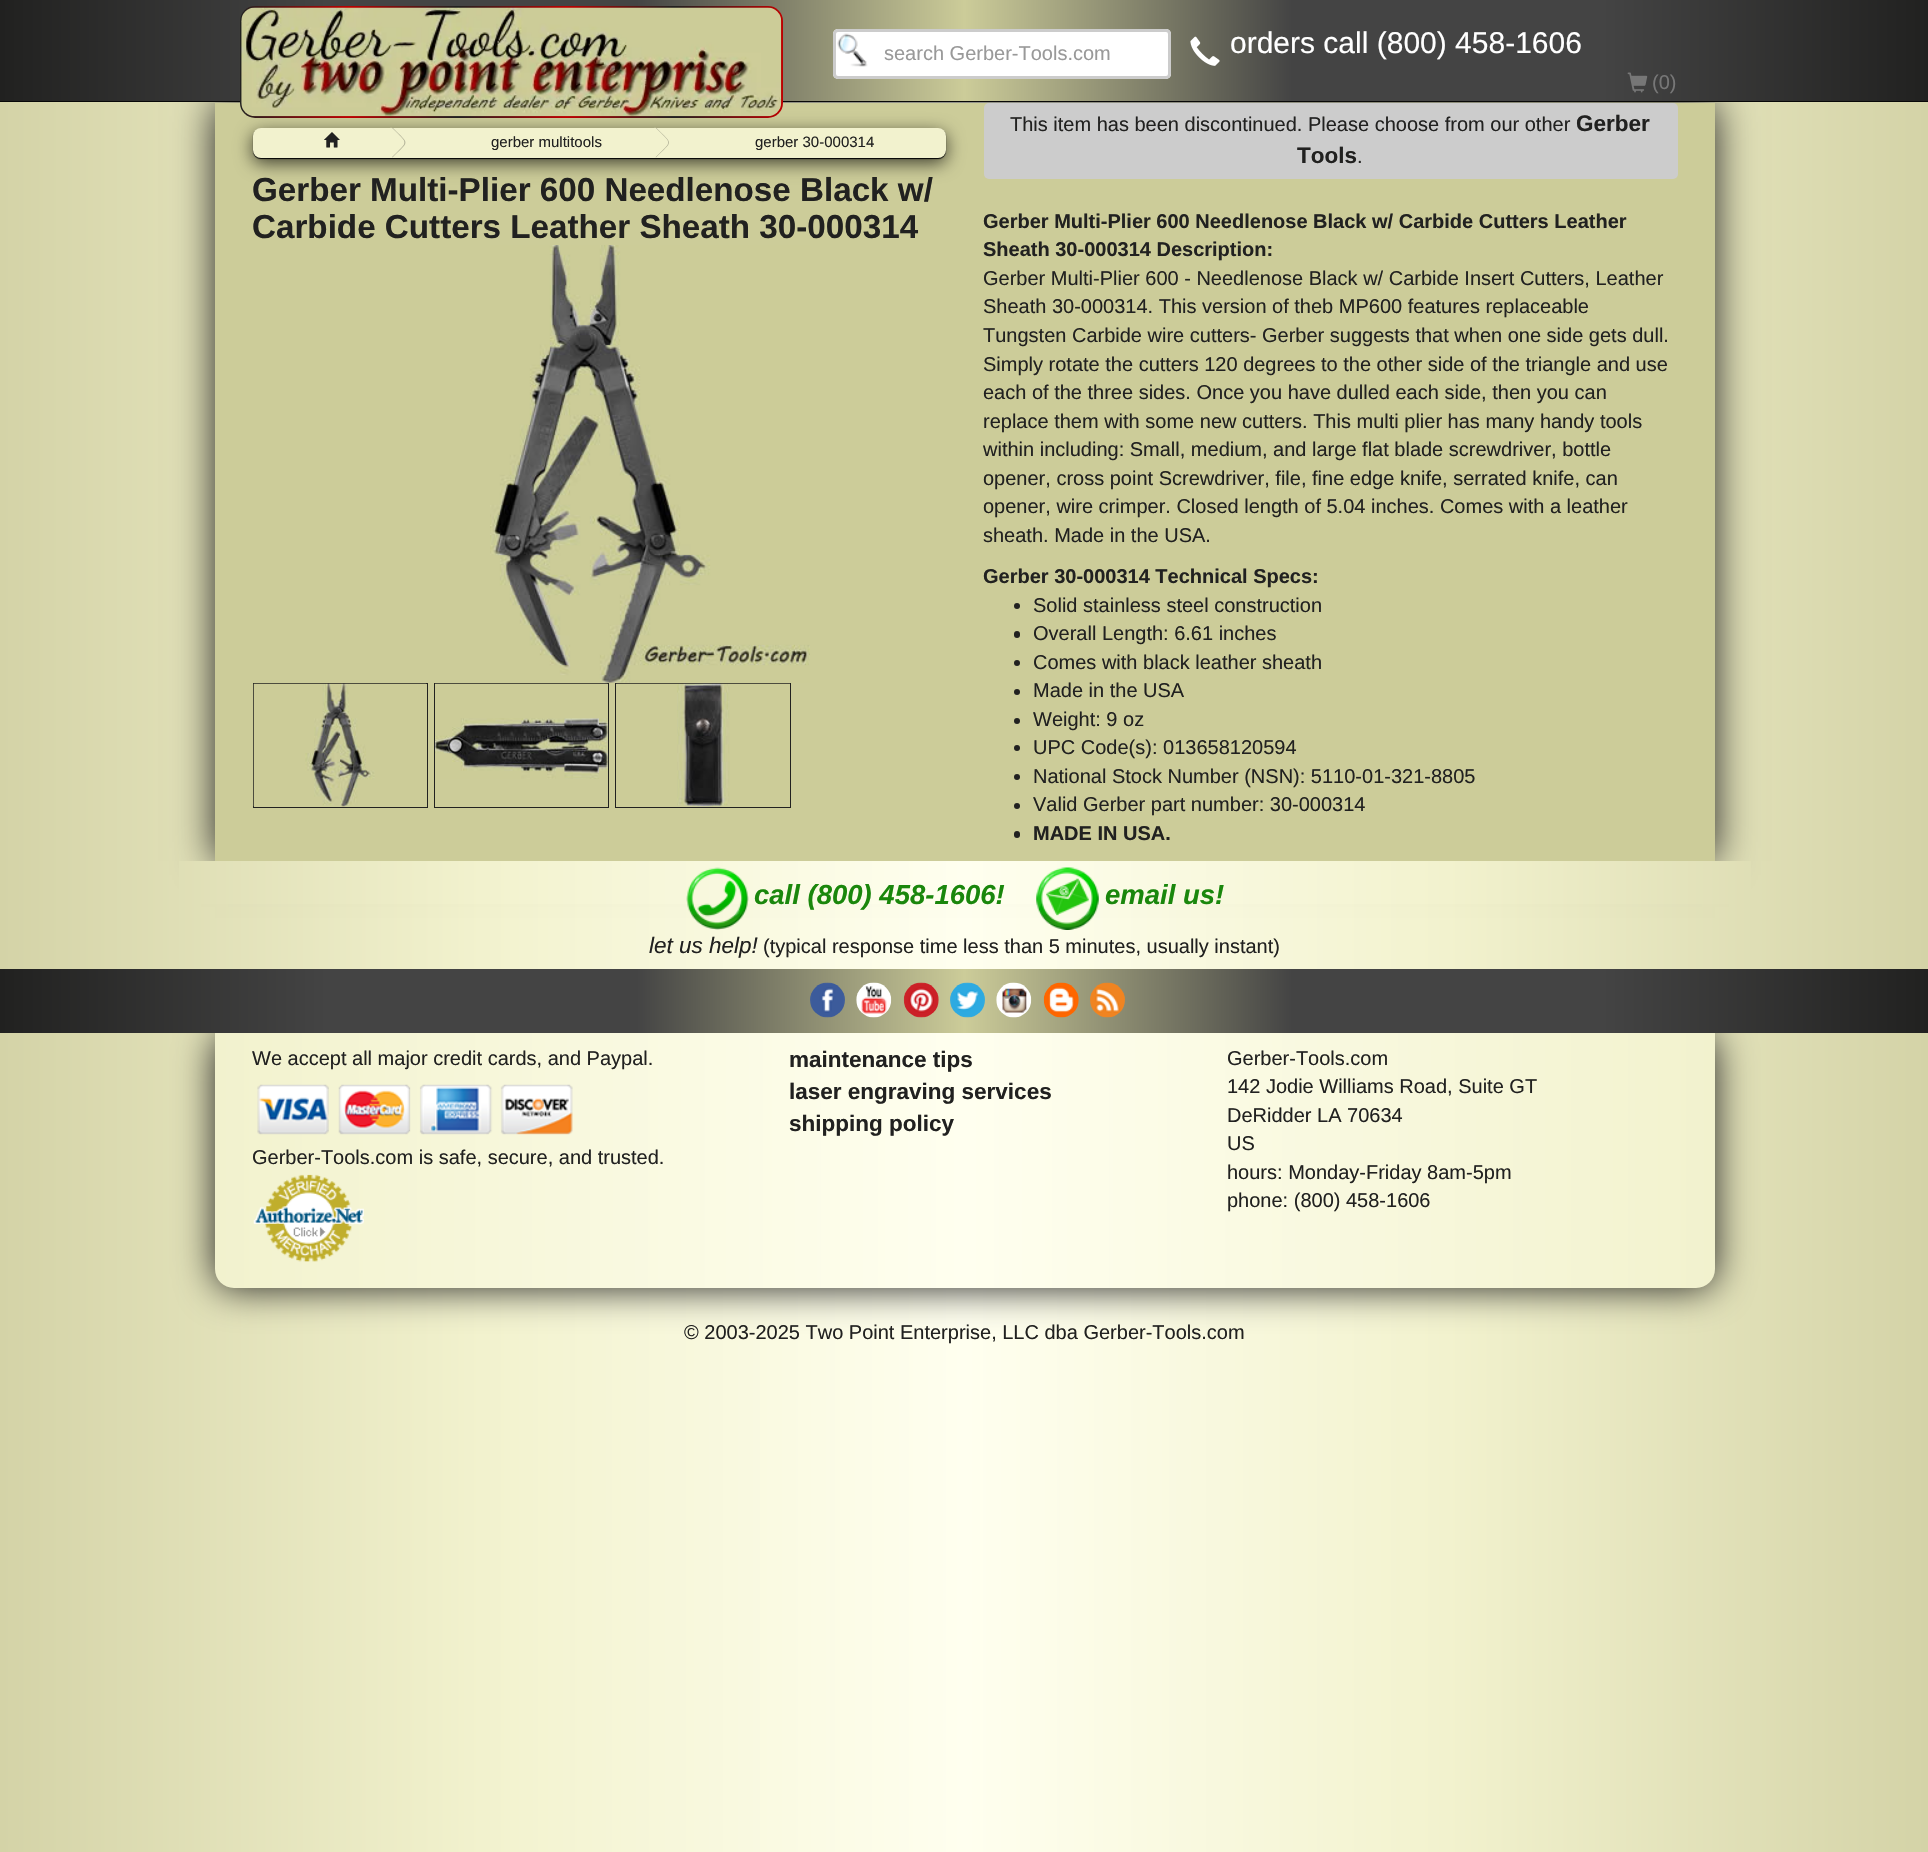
#include "include/core/SkBlurTypes.h"
#include "include/core/SkCanvas.h"
#include "include/core/SkData.h"
#include "include/core/SkFont.h"
#include "include/core/SkFontMgr.h"
#include "include/core/SkImage.h"
#include "include/core/SkMaskFilter.h"
#include "include/core/SkPaint.h"
#include "include/core/SkPathBuilder.h"
#include "include/core/SkTextBlob.h"
#include "include/effects/SkDashPathEffect.h"
#include "include/effects/SkGradientShader.h"
#include "include/utils/SkParsePath.h"

extern sk_sp<SkFontMgr> fontMgr;

static SkFont font(const char* family, int weight, float size, bool italic = false) {
    SkFontStyle style(weight, SkFontStyle::kNormal_Width,
        italic ? SkFontStyle::kItalic_Slant : SkFontStyle::kUpright_Slant);
    SkFont result(fontMgr->matchFamilyStyle(family, style), size);
    result.setSubpixel(true);
    return result;
}

static void drawLabel(SkCanvas* canvas, const char* s, float x, float y, const SkFont& font, SkColor color) {
    SkPaint ink(SkColor4f::FromColor(color));
    ink.setAntiAlias(true);
    canvas->drawString(s, x, y, font, ink);
}

static void fillRect(SkCanvas* canvas, float x, float y, float w, float h, SkColor color) {
    SkPaint ink(SkColor4f::FromColor(color));
    ink.setAntiAlias(true);
    canvas->drawRect(SkRect::MakeXYWH(x, y, w, h), ink);
}

static void fillRRect(SkCanvas* canvas, float x, float y, float w, float h, float radius, SkColor color) {
    SkPaint ink(SkColor4f::FromColor(color));
    ink.setAntiAlias(true);
    canvas->drawRoundRect(SkRect::MakeXYWH(x, y, w, h), radius, radius, ink);
}

static void drawPhoto(SkCanvas* canvas, const char* path, float x, float y, float w, float h) {
    auto image = SkImages::DeferredFromEncodedData(SkData::MakeFromFileName(path));
    canvas->drawImageRect(image, SkRect::MakeXYWH(x, y, w, h), SkSamplingOptions());
}

static SkPath parsePath(const char* data, bool evenOdd = false) {
    SkPath result = *SkParsePath::FromSVGString(data);
    if (evenOdd) result.setFillType(SkPathFillType::kEvenOdd);
    return result;
}

void draw(SkCanvas* canvas) {
    SkPaint paint;
    paint.setAntiAlias(true);
    canvas->clear(0xFFFFFFFF);
    {
        const SkColor colors[] = {0xFFD4D3A7, 0xFFF2F2CE, 0xFFFFFFEF, 0xFFF2F2CE, 0xFFD4D3A7};
        const float stops[] = {0, 0.25f, 0.5f, 0.75f, 1};
        const SkPoint ends[] = {{0, 688}, {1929, 688}};
        paint.setShader(SkGradientShader::MakeLinear(ends, colors, stops, 5, SkTileMode::kClamp));
        paint.setAlpha(255);
    }
    canvas->drawRect(SkRect::MakeXYWH(0, 102, 1928, 1750), paint);
    paint.setShader(nullptr);
    paint.setColor(0xFF212120);
    paint.setMaskFilter(SkMaskFilter::MakeBlur(kNormal_SkBlurStyle, 19));
    canvas->drawRect(SkRect::MakeXYWH(215, 103, 1500, 758), paint);
    paint.setMaskFilter(nullptr);
    {
        const SkColor colors[] = {0xFF212120, 0xFF444444, 0xFF444444, 0xFFCCCC99, 0xFF444444, 0xFF444444, 0xFF212120};
        const float stops[] = {0, 0.17f, 0.33f, 0.5f, 0.67f, 0.83f, 1};
        const SkPoint ends[] = {{0, 51}, {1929, 51}};
        paint.setShader(SkGradientShader::MakeLinear(ends, colors, stops, 7, SkTileMode::kClamp));
        paint.setAlpha(255);
    }
    canvas->drawRect(SkRect::MakeXYWH(0, 0, 1928, 101), paint);
    fillRect(canvas, 0, 101, 1928, 1, 0xFF080808);
    fillRect(canvas, 215, 103, 1500, 758, 0xFFCCCC99);
    paint.setShader(nullptr);
    paint.setColor(0xB3000000);
    paint.setMaskFilter(SkMaskFilter::MakeBlur(kNormal_SkBlurStyle, 9));
    canvas->drawRoundRect(SkRect::MakeXYWH(253, 133, 693, 30), 8, 8, paint);
    paint.setMaskFilter(nullptr);
    {
        const SkColor colors[] = {0xFF212120, 0xFFBD0000, 0xFF212120, 0xFFBD0000, 0xFF212120, 0xFFBD0000};
        const float stops[] = {0, 0.2f, 0.4f, 0.6f, 0.8f, 1};
        const SkPoint ends[] = {{240, 62}, {783, 62}};
        paint.setShader(SkGradientShader::MakeLinear(ends, colors, stops, 6, SkTileMode::kClamp));
        paint.setAlpha(255);
    }
    canvas->drawRoundRect(SkRect::MakeXYWH(240, 6, 543, 112), 15, 15, paint);
    drawPhoto(canvas, "assets/img1.png", 241, 7, 541, 110);
    fillRRect(canvas, 833, 29, 338, 50, 5, 0xFFFFFFFF);
    drawPhoto(canvas, "assets/img2.png", 837, 33, 31, 34);
    paint.setStroke(true);
    paint.setStrokeWidth(3);
    paint.setShader(nullptr);
    paint.setColor(0xFFCCCCCC);
    canvas->drawRoundRect(SkRect::MakeXYWH(834.5f, 30.5f, 335, 47), 3.5f, 3.5f, paint);
    SkFont font1 = font("Liberation Sans", 400, 20);
    drawLabel(canvas, "search Gerber-Tools.com", 884, 60, font1, 0xFF999999);
    drawPhoto(canvas, "assets/img3.png", 1190, 36, 30, 30);
    SkFont font2 = font("Liberation Sans", 400, 30);
    drawLabel(canvas, "orders call (800) 458-1606", 1230, 53, font2, 0xFFFFFFFF);
    drawPhoto(canvas, "assets/img4.png", 1627, 72, 21, 21);
    drawLabel(canvas, "(0)", 1652, 89, font1, 0xFF777777);
    paint.setStroke(false);
    paint.setColor(0xFF000000);
    paint.setMaskFilter(SkMaskFilter::MakeBlur(kNormal_SkBlurStyle, 0.5f));
    canvas->drawRoundRect(SkRect::MakeXYWH(253, 129, 693, 30), 8, 8, paint);
    paint.setMaskFilter(nullptr);
    fillRRect(canvas, 253, 128, 693, 30, 8, 0xFFF2F2CE);
    drawPhoto(canvas, "assets/img5.png", 324, 132, 16, 16);
    paint.setColor(0xFFB6B69B);
    canvas->drawPath(parsePath("M393 128H392C408.5 144.5 408.5 140.5 392 157L392.5 157.5C409.5 140.5 410 145 393 128Z"), paint);
    paint.setColor(0xFFF2F2CE);
    canvas->drawPath(parsePath("M391 127.5C408.5 145 408.5 140 391 157.5L376 142.5Z"), paint);
    SkFont font3 = font("Liberation Sans", 400, 15);
    drawLabel(canvas, "gerber multitools", 491, 147, font3, 0xFF212120);
    paint.setColor(0xFFB6B69B);
    canvas->drawPath(parsePath("M656.5 128H655.5C672 144.5 672 140.5 655.5 157L656 157.5C673 140.5 673.5 145 656.5 128Z"), paint);
    paint.setColor(0xFFF2F2CE);
    canvas->drawPath(parsePath("M655 127.5C672.5 145 672.5 140 655 157.5L640 142.5Z"), paint);
    drawLabel(canvas, "gerber 30-000314", 755, 147, font3, 0xFF212120);
    SkFont font4 = font("Liberation Sans", 700, 33.2f);
    drawLabel(canvas, "Gerber Multi-Plier 600 Needlenose Black w/", 252, 201, font4, 0xFF212120);
    drawLabel(canvas, "Carbide Cutters Leather Sheath 30-000314", 252, 238, font4, 0xFF212120);
    drawPhoto(canvas, "assets/img6.png", 490, 245, 320, 438);
    paint.setStroke(true);
    paint.setStrokeWidth(1);
    paint.setColor(0xFF212120);
    canvas->drawRect(SkRect::MakeXYWH(253.5f, 683.5f, 174, 124), paint);
    drawPhoto(canvas, "assets/img7.png", 253, 683, 174, 124);
    canvas->drawRect(SkRect::MakeXYWH(434.5f, 683.5f, 174, 124), paint);
    drawPhoto(canvas, "assets/img8.png", 435, 683, 173, 96);
    canvas->drawRect(SkRect::MakeXYWH(615.5f, 683.5f, 175, 124), paint);
    drawPhoto(canvas, "assets/img9.png", 616, 683, 174, 124);
    fillRRect(canvas, 984, 103, 694, 76, 5, 0xFFCCCCCC);
    drawLabel(canvas, "This item has been discontinued. Please choose from our other", 1010, 131, font1, 0xFF212120);
    SkFont font5 = font("Liberation Sans", 700, 22.5f);
    drawLabel(canvas, "Gerber", 1576, 131, font5, 0xFF212120);
    drawLabel(canvas, "Tools", 1297, 163, font5, 0xFF212120);
    drawLabel(canvas, ".", 1357, 163, font1, 0xFF212120);
    SkFont font6 = font("Liberation Sans", 700, 20);
    drawLabel(canvas, "Gerber Multi-Plier 600 Needlenose Black w/ Carbide Cutters Leather", 983, 228, font6, 0xFF212120);
    drawLabel(canvas, "Sheath 30-000314 Description:", 983, 256, font6, 0xFF212120);
    drawLabel(canvas, "Gerber Multi-Plier 600 - Needlenose Black w/ Carbide Insert Cutters, Leather", 983, 285, font1, 0xFF212120);
    drawLabel(canvas, "Sheath 30-000314. This version of theb MP600 features replaceable", 983, 313, font1, 0xFF212120);
    drawLabel(canvas, "Tungsten Carbide wire cutters- Gerber suggests that when one side gets dull.", 983, 342, font1, 0xFF212120);
    drawLabel(canvas, "Simply rotate the cutters 120 degrees to the other side of the triangle and use", 983, 371, font1, 0xFF212120);
    drawLabel(canvas, "each of the three sides. Once you have dulled each side, then you can", 983, 399, font1, 0xFF212120);
    drawLabel(canvas, "replace them with some new cutters. This multi plier has many handy tools", 983, 428, font1, 0xFF212120);
    drawLabel(canvas, "within including: Small, medium, and large flat blade screwdriver, bottle", 983, 456, font1, 0xFF212120);
    drawLabel(canvas, "opener, cross point Screwdriver, file, fine edge knife, serrated knife, can", 983, 485, font1, 0xFF212120);
    drawLabel(canvas, "opener, wire crimper. Closed length of 5.04 inches. Comes with a leather", 983, 513, font1, 0xFF212120);
    drawLabel(canvas, "sheath. Made in the USA.", 983, 542, font1, 0xFF212120);
    drawLabel(canvas, "Gerber 30-000314 Technical Specs:", 983, 583, font6, 0xFF212120);
    paint.setStroke(false);
    canvas->drawCircle(1017, 606, 3, paint);
    drawLabel(canvas, "Solid stainless steel construction", 1033, 612, font1, 0xFF212120);
    fillRRect(canvas, 1014, 631, 6, 7, 3, 0xFF212120);
    drawLabel(canvas, "Overall Length: 6.61 inches", 1033, 640, font1, 0xFF212120);
    canvas->drawCircle(1017, 663, 3, paint);
    drawLabel(canvas, "Comes with black leather sheath", 1033, 669, font1, 0xFF212120);
    canvas->drawCircle(1017, 692, 3, paint);
    drawLabel(canvas, "Made in the USA", 1033, 697, font1, 0xFF212120);
    canvas->drawCircle(1017, 721, 3, paint);
    drawLabel(canvas, "Weight: 9 oz", 1033, 726, font1, 0xFF212120);
    canvas->drawCircle(1017, 748, 3, paint);
    drawLabel(canvas, "UPC Code(s): 013658120594", 1033, 754, font1, 0xFF212120);
    canvas->drawCircle(1017, 777, 3, paint);
    drawLabel(canvas, "National Stock Number (NSN): 5110-01-321-8805", 1033, 783, font1, 0xFF212120);
    canvas->drawCircle(1017, 806, 3, paint);
    drawLabel(canvas, "Valid Gerber part number: 30-000314", 1033, 811, font1, 0xFF212120);
    fillRRect(canvas, 1014, 831, 6, 7, 3, 0xFF212120);
    drawLabel(canvas, "MADE IN USA.", 1033, 840, font6, 0xFF212120);
    {
        const SkColor colors[] = {0xFFD4D3A7, 0xFFF2F2CE, 0xFFFFFFEF, 0xFFF2F2CE, 0xFFD4D3A7};
        const float stops[] = {0, 0.25f, 0.5f, 0.75f, 1};
        const SkPoint ends[] = {{0, 915}, {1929, 915}};
        paint.setShader(SkGradientShader::MakeLinear(ends, colors, stops, 5, SkTileMode::kClamp));
        paint.setAlpha(255);
    }
    canvas->drawRect(SkRect::MakeXYWH(179, 861, 1572, 43), paint);
    drawPhoto(canvas, "assets/img10.png", 686, 867, 63, 63);
    SkFont font7 = font("Liberation Sans", 700, 27.5f, true);
    drawLabel(canvas, "call (800) 458-1606!", 754, 904, font7, 0xFF1A870C);
    drawPhoto(canvas, "assets/img11.png", 1036, 867, 63, 63);
    drawLabel(canvas, "email us!", 1105, 904, font7, 0xFF1A870C);
    SkFont font8 = font("Liberation Sans", 400, 22.5f, true);
    drawLabel(canvas, "let us help!", 649, 953, font8, 0xFF212120);
    drawLabel(canvas, "(typical response time less than 5 minutes, usually instant)", 763, 953, font1, 0xFF212120);
    paint.setShader(nullptr);
    paint.setColor(0xFF212120);
    paint.setMaskFilter(SkMaskFilter::MakeBlur(kNormal_SkBlurStyle, 19));
    canvas->drawRoundRect(SkRect::MakeXYWH(215, 1033, 1500, 255), 19, 19, paint);
    paint.setMaskFilter(nullptr);
    {
        const SkColor colors[] = {0xFF212120, 0xFF444444, 0xFF444444, 0xFFCCCC99, 0xFF444444, 0xFF444444, 0xFF212120};
        const float stops[] = {0, 0.17f, 0.33f, 0.5f, 0.67f, 0.83f, 1};
        const SkPoint ends[] = {{0, 1001}, {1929, 1001}};
        paint.setShader(SkGradientShader::MakeLinear(ends, colors, stops, 7, SkTileMode::kClamp));
        paint.setAlpha(255);
    }
    canvas->drawRect(SkRect::MakeXYWH(0, 969, 1928, 64), paint);
    drawPhoto(canvas, "assets/img12.png", 810, 982, 35, 36);
    drawPhoto(canvas, "assets/img13.png", 856, 982, 36, 36);
    drawPhoto(canvas, "assets/img14.png", 903, 982, 36, 36);
    drawPhoto(canvas, "assets/img15.png", 950, 982, 35, 36);
    drawPhoto(canvas, "assets/img16.png", 996, 982, 36, 36);
    drawPhoto(canvas, "assets/img17.png", 1043, 982, 36, 36);
    drawPhoto(canvas, "assets/img18.png", 1090, 982, 35, 36);
    {
        const SkColor colors[] = {0xFFF2F2CE, 0xFFFFFFEF, 0xFFF2F2CE};
        const float stops[] = {0, 0.5f, 1};
        const SkPoint ends[] = {{215, 1160}, {1715, 1160}};
        paint.setShader(SkGradientShader::MakeLinear(ends, colors, stops, 3, SkTileMode::kClamp));
        paint.setAlpha(255);
    }
    canvas->drawPath(parsePath("M215 1033H1715V1269C1715 1279.5 1706.5 1288 1696 1288H234C223.5 1288 215 1279.5 215 1269Z"), paint);
    drawLabel(canvas, "We accept all major credit cards, and Paypal.", 252, 1065, font1, 0xFF212120);
    drawPhoto(canvas, "assets/img19.png", 257, 1084, 316, 51);
    drawLabel(canvas, "Gerber-Tools.com is safe, secure, and trusted.", 252, 1164, font1, 0xFF212120);
    drawPhoto(canvas, "assets/img20.png", 253, 1174, 111, 88);
    drawLabel(canvas, "maintenance tips", 789, 1067, font5, 0xFF212120);
    drawLabel(canvas, "laser engraving services", 789, 1099, font5, 0xFF212120);
    drawLabel(canvas, "shipping policy", 789, 1131, font5, 0xFF212120);
    drawLabel(canvas, "Gerber-Tools.com", 1227, 1065, font1, 0xFF212120);
    drawLabel(canvas, "142 Jodie Williams Road, Suite GT", 1227, 1093, font1, 0xFF212120);
    drawLabel(canvas, "DeRidder LA 70634", 1227, 1122, font1, 0xFF212120);
    drawLabel(canvas, "US", 1227, 1150, font1, 0xFF212120);
    drawLabel(canvas, "hours: Monday-Friday 8am-5pm", 1227, 1179, font1, 0xFF212120);
    drawLabel(canvas, "phone: (800) 458-1606", 1227, 1207, font1, 0xFF212120);
    drawLabel(canvas, "© 2003-2025 Two Point Enterprise, LLC dba Gerber-Tools.com", 684, 1339, font1, 0xFF212120);
}
